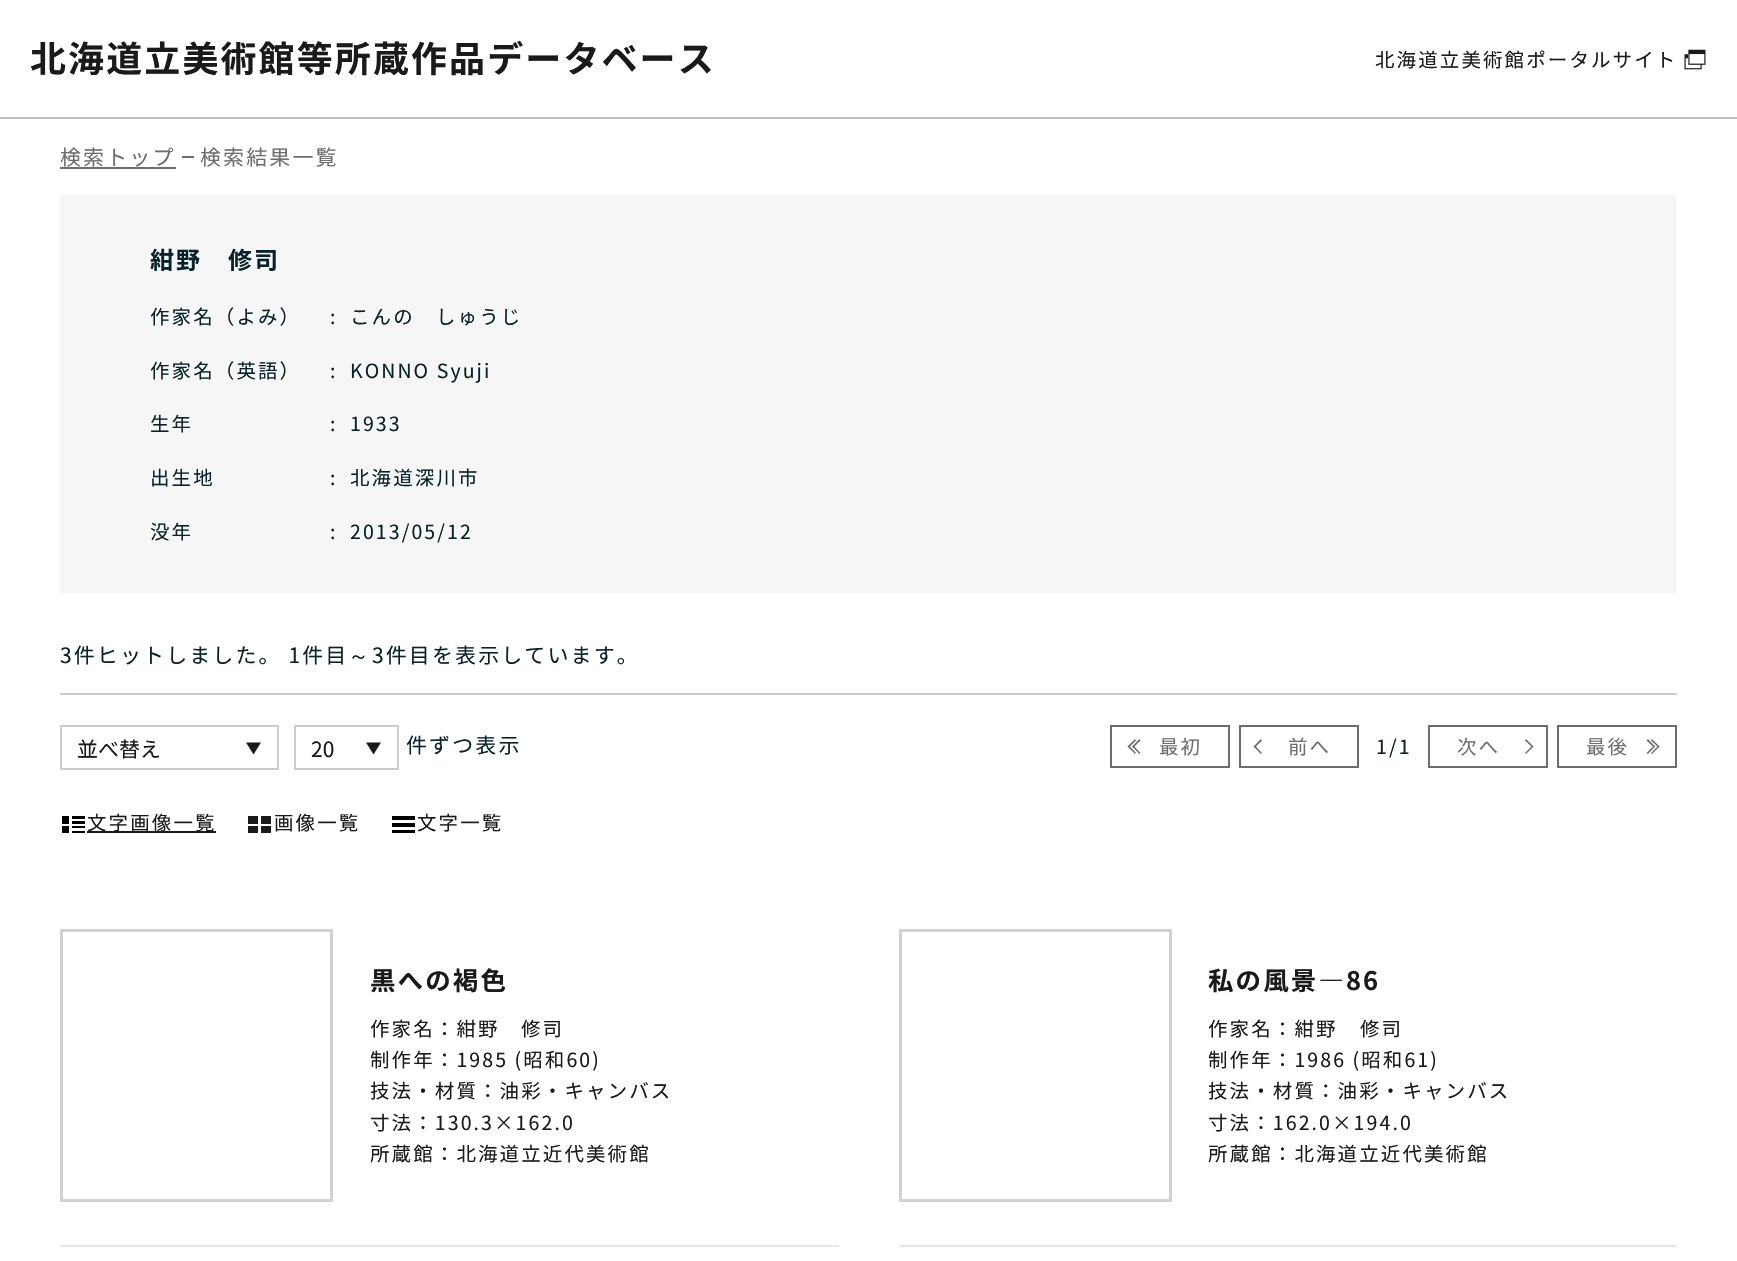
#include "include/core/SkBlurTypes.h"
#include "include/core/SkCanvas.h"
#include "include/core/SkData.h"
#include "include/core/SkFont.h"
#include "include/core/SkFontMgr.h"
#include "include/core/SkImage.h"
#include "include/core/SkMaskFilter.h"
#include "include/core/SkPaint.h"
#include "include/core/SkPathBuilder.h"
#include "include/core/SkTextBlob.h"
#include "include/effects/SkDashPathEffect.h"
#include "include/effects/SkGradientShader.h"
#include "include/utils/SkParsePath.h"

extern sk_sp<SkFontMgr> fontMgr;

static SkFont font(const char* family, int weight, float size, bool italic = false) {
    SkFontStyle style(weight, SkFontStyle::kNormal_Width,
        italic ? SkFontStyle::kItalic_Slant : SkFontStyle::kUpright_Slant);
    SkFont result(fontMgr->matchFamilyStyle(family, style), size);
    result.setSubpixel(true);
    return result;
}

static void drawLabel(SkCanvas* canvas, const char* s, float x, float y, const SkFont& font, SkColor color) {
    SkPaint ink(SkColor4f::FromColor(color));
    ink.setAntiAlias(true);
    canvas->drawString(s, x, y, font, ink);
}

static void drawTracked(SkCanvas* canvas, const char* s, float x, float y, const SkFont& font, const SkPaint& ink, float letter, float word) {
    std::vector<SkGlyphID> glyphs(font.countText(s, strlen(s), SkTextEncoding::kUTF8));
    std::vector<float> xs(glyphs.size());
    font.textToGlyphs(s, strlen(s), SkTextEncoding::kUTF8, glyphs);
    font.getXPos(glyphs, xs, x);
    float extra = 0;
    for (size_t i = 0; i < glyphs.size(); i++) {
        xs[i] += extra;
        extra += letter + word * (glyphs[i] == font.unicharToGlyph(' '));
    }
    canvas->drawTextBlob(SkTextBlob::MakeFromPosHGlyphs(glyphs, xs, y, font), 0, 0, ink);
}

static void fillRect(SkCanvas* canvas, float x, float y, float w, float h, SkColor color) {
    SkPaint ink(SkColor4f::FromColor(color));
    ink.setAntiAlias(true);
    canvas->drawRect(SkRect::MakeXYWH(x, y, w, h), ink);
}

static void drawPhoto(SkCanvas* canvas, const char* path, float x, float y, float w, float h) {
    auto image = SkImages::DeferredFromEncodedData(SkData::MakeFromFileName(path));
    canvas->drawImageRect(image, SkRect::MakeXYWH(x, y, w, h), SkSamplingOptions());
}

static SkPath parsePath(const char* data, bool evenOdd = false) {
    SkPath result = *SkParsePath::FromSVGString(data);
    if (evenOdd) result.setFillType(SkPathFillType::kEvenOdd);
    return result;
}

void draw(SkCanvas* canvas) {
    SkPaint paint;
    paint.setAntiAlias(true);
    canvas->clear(0xFFFFFFFF);
    fillRect(canvas, 0, 117, 1737, 2, 0xFFC0C0C0);
    SkFont font1 = font("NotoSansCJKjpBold", 700, 36);
    paint.setColor(0xFF1A1A1A);
    drawTracked(canvas, "北海道立美術館等所蔵作品データベース", 30, 72, font1, paint, 2.1f, 0);
    SkFont font2 = font("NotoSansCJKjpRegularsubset", 400, 19.5f);
    drawTracked(canvas, "北海道立美術館ポータルサイト", 1375, 67, font2, paint, 2.1f, 0);
    drawPhoto(canvas, "assets/img1.png", 1684, 49, 22, 21);
    SkFont font3 = font("NotoSansCJKjpRegularsubset", 400, 21);
    paint.setColor(0xFF6D6D6D);
    drawTracked(canvas, "検索トップ", 60, 165, font3, paint, 2.1f, 0);
    fillRect(canvas, 60, 167, 116, 2, 0xFF6D6D6D);
    fillRect(canvas, 182, 156, 12, 2, 0xFF6D6D6D);
    drawTracked(canvas, "検索結果一覧", 200, 165, font3, paint, 2.1f, 0);
    fillRect(canvas, 60, 195, 1617, 398, 0xFFF6F6F6);
    SkFont font4 = font("NotoSansCJKjpBold", 700, 24);
    paint.setColor(0xFF07222B);
    drawTracked(canvas, "紺野", 150, 269, font4, paint, 2.1f, 0);
    drawTracked(canvas, "修司", 228, 269, font4, paint, 2.1f, 0);
    drawTracked(canvas, "作家名（よみ）", 150, 324, font2, paint, 2.1f, 0);
    drawTracked(canvas, ":", 330, 324, font2, paint, 2.1f, 0);
    drawTracked(canvas, "こんの", 350, 324, font2, paint, 2.1f, 0);
    drawTracked(canvas, "しゅうじ", 436, 324, font2, paint, 2.1f, 0);
    drawTracked(canvas, "作家名（英語）", 150, 378, font2, paint, 2.1f, 0);
    drawTracked(canvas, ":", 330, 378, font2, paint, 2.1f, 0);
    drawTracked(canvas, "KONNO Syuji", 350, 378, font2, paint, 2.1f, 0);
    drawTracked(canvas, "生年", 150, 431, font2, paint, 2.1f, 0);
    drawTracked(canvas, ":", 330, 431, font2, paint, 2.1f, 0);
    drawTracked(canvas, "1933", 350, 431, font2, paint, 2.1f, 0);
    drawTracked(canvas, "出生地", 150, 485, font2, paint, 2.1f, 0);
    drawTracked(canvas, ":", 330, 485, font2, paint, 2.1f, 0);
    drawTracked(canvas, "北海道深川市", 350, 485, font2, paint, 2.1f, 0);
    drawTracked(canvas, "没年", 150, 539, font2, paint, 2.1f, 0);
    drawTracked(canvas, ":", 330, 539, font2, paint, 2.1f, 0);
    drawTracked(canvas, "2013/05/12", 350, 539, font2, paint, 2.1f, 0);
    fillRect(canvas, 60, 693, 1617, 2, 0xFFCCCCCC);
    drawTracked(canvas, "3件ヒットしました。 1件目", 60, 663, font3, paint, 2.1f, 0);
    SkFont font5 = font("WenQuanYi Zen Hei", 500, 21);
    drawTracked(canvas, "～", 348, 663, font5, paint, 2.1f, 0);
    drawTracked(canvas, "3件目を表示しています。", 372, 663, font3, paint, 2.1f, 0);
    paint.setStroke(true);
    paint.setStrokeWidth(2);
    paint.setColor(0xFFCCCCCC);
    canvas->drawRect(SkRect::MakeXYWH(61, 726, 217, 43), paint);
    drawLabel(canvas, "並べ替え", 77, 757, font3, 0xFF1A1A1A);
    paint.setStroke(false);
    paint.setColor(0xFF1A1A1A);
    canvas->drawPath(parsePath("M246 742.5H261L253.5 754.5Z"), paint);
    paint.setStroke(true);
    paint.setColor(0xFFCCCCCC);
    canvas->drawRect(SkRect::MakeXYWH(295, 726, 103, 43), paint);
    drawLabel(canvas, "20", 311, 757, font3, 0xFF1A1A1A);
    paint.setStroke(false);
    paint.setColor(0xFF1A1A1A);
    canvas->drawPath(parsePath("M366 742.5H381L373.5 754.5Z"), paint);
    paint.setColor(0xFF07222B);
    drawTracked(canvas, "件ずつ表示", 406, 753, font3, paint, 2.1f, 0);
    paint.setStroke(true);
    paint.setColor(0xFF6D6D6D);
    canvas->drawRect(SkRect::MakeXYWH(1111, 726, 118, 41), paint);
    paint.setStroke(false);
    canvas->drawPath(parsePath("M1129 745.5L1136 753L1135 754L1127.5 746.5Z"), paint);
    canvas->drawPath(parsePath("M1135 739L1136 740.5L1129 747.5L1127.5 746.5Z"), paint);
    canvas->drawPath(parsePath("M1133.5 745.5L1140.5 753L1139.5 754L1132 746.5Z"), paint);
    canvas->drawPath(parsePath("M1139.5 739L1140.5 740.5L1133.5 747.5L1132 746.5Z"), paint);
    drawTracked(canvas, "最初", 1159, 754, font2, paint, 2.1f, 0);
    paint.setStroke(true);
    canvas->drawRect(SkRect::MakeXYWH(1240, 726, 118, 41), paint);
    paint.setStroke(false);
    canvas->drawPath(parsePath("M1255 745.5L1262 753L1261 754L1253.5 746.5Z"), paint);
    canvas->drawPath(parsePath("M1261 739L1262 740.5L1255 747.5L1253.5 746.5Z"), paint);
    drawTracked(canvas, "前へ", 1288, 754, font2, paint, 2.1f, 0);
    paint.setColor(0xFF07222B);
    drawTracked(canvas, "1/1", 1376, 754, font2, paint, 2.1f, 0);
    paint.setStroke(true);
    paint.setColor(0xFF6D6D6D);
    canvas->drawRect(SkRect::MakeXYWH(1429, 726, 118, 41), paint);
    paint.setStroke(false);
    drawTracked(canvas, "次へ", 1457, 754, font2, paint, 2.1f, 0);
    canvas->drawPath(parsePath("M1526 739L1533.5 746.5L1532.5 747.5L1525 740.5Z"), paint);
    canvas->drawPath(parsePath("M1532.5 745.5L1533.5 746.5L1526 754L1525 753Z"), paint);
    paint.setStroke(true);
    canvas->drawRect(SkRect::MakeXYWH(1558, 726, 118, 41), paint);
    paint.setStroke(false);
    drawTracked(canvas, "最後", 1586, 754, font2, paint, 2.1f, 0);
    canvas->drawPath(parsePath("M1652 739L1659.5 746.5L1658.5 747.5L1651 740.5Z"), paint);
    canvas->drawPath(parsePath("M1658.5 745.5L1659.5 746.5L1652 754L1651 753Z"), paint);
    canvas->drawPath(parsePath("M1648 739L1655 746.5L1654 747.5L1646.5 740.5Z"), paint);
    canvas->drawPath(parsePath("M1654 745.5L1655 746.5L1648 754L1646.5 753Z"), paint);
    drawPhoto(canvas, "assets/img2.png", 62, 816, 23, 17);
    fillRect(canvas, 87, 831, 129, 2, 0xFF1A1A1A);
    paint.setColor(0xFF1A1A1A);
    drawTracked(canvas, "文字画像一覧", 87, 830, font2, paint, 2.1f, 0);
    fillRect(canvas, 248, 816, 10, 8, 0xFF1A1A1A);
    fillRect(canvas, 261, 816, 10, 8, 0xFF1A1A1A);
    fillRect(canvas, 248, 826, 10, 7, 0xFF1A1A1A);
    fillRect(canvas, 261, 826, 10, 7, 0xFF1A1A1A);
    drawTracked(canvas, "画像一覧", 274, 830, font2, paint, 2.1f, 0);
    fillRect(canvas, 392, 816, 23, 4, 0xFF000000);
    fillRect(canvas, 392, 823, 23, 4, 0xFF000000);
    fillRect(canvas, 392, 830, 23, 3, 0xFF000000);
    drawTracked(canvas, "文字一覧", 417, 830, font2, paint, 2.1f, 0);
    paint.setStroke(true);
    paint.setStrokeWidth(3);
    paint.setColor(0xFFD1D1D1);
    canvas->drawRect(SkRect::MakeXYWH(61.5f, 930.5f, 270, 270), paint);
    SkFont font6 = font("NotoSansCJKjpBold", 700, 25.5f);
    paint.setStroke(false);
    paint.setColor(0xFF1A1A1A);
    drawTracked(canvas, "黒への褐色", 370, 990, font6, paint, 2.1f, 0);
    drawTracked(canvas, "作家名：紺野", 370, 1036, font2, paint, 2.1f, 0);
    drawTracked(canvas, "修司", 521, 1036, font2, paint, 2.1f, 0);
    drawTracked(canvas, "制作年：1985 (昭和60)", 370, 1067, font2, paint, 2.1f, 0);
    drawTracked(canvas, "技法・材質：油彩・キャンバス", 370, 1098, font2, paint, 2.1f, 0);
    drawTracked(canvas, "寸法：130.3×162.0", 370, 1130, font2, paint, 2.1f, 0);
    drawTracked(canvas, "所蔵館：北海道立近代美術館", 370, 1161, font2, paint, 2.1f, 0);
    fillRect(canvas, 60, 1245, 779, 2, 0xFFE6E6E6);
    paint.setStroke(true);
    paint.setColor(0xFFD1D1D1);
    canvas->drawRect(SkRect::MakeXYWH(900.5f, 930.5f, 270, 270), paint);
    paint.setStroke(false);
    paint.setColor(0xFF1A1A1A);
    drawTracked(canvas, "私の風景―86", 1208, 990, font6, paint, 2.1f, 0);
    drawTracked(canvas, "作家名：紺野", 1208, 1036, font2, paint, 2.1f, 0);
    drawTracked(canvas, "修司", 1360, 1036, font2, paint, 2.1f, 0);
    drawTracked(canvas, "制作年：1986 (昭和61)", 1208, 1067, font2, paint, 2.1f, 0);
    drawTracked(canvas, "技法・材質：油彩・キャンバス", 1208, 1098, font2, paint, 2.1f, 0);
    drawTracked(canvas, "寸法：162.0×194.0", 1208, 1130, font2, paint, 2.1f, 0);
    drawTracked(canvas, "所蔵館：北海道立近代美術館", 1208, 1161, font2, paint, 2.1f, 0);
    fillRect(canvas, 899, 1245, 778, 2, 0xFFE6E6E6);
}
